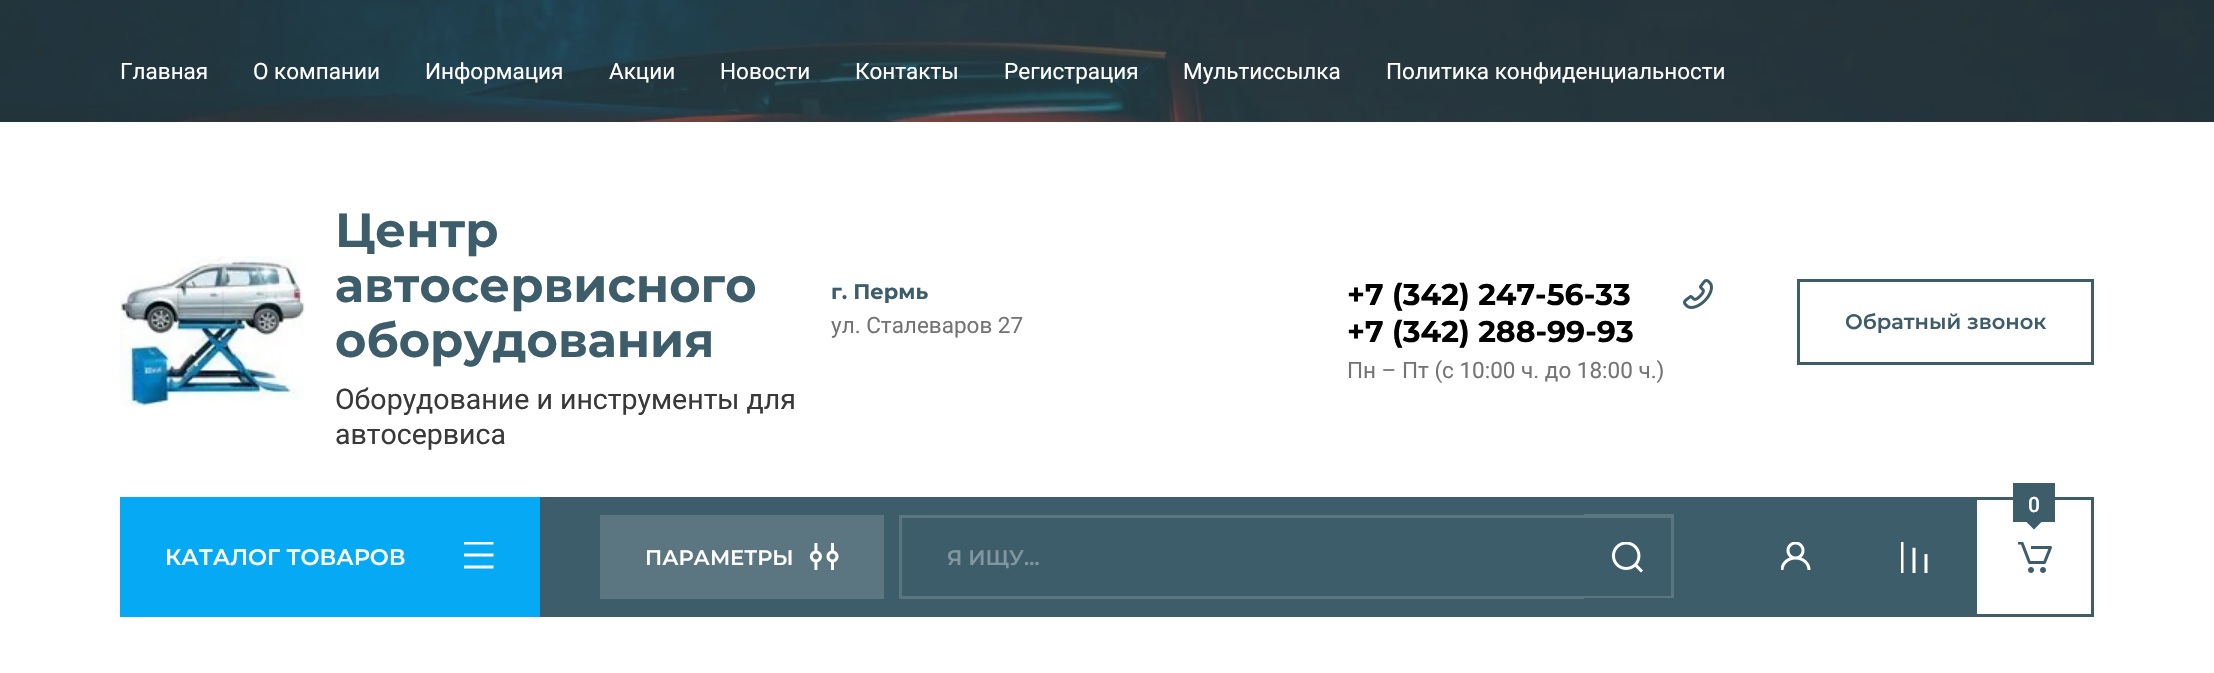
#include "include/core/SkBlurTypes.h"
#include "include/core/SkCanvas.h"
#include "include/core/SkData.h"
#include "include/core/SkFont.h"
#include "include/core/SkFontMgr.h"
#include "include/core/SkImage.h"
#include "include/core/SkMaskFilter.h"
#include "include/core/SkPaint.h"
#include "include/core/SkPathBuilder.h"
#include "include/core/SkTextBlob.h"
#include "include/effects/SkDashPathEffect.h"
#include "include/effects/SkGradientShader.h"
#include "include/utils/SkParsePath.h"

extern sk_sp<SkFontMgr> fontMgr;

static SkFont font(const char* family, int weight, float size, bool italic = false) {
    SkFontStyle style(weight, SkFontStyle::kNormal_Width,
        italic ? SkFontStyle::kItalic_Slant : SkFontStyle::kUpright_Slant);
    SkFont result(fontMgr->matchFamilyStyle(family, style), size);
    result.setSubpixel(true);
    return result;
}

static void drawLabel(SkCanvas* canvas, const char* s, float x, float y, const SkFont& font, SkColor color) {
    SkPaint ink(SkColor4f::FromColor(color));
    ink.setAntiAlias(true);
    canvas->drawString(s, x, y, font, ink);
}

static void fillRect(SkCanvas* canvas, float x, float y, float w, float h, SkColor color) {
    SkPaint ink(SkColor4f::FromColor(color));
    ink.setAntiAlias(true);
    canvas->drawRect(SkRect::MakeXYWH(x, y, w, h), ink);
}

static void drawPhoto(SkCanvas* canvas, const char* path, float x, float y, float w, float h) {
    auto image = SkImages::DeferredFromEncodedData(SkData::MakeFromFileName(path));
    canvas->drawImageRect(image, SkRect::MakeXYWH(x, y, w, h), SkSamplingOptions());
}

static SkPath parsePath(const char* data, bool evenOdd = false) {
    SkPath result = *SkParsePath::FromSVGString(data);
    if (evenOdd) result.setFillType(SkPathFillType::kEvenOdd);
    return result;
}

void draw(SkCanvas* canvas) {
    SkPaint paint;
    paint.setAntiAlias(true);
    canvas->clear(0xFFFFFFFF);
    drawPhoto(canvas, "assets/img1.png", 0, 0, 2214, 122);
    SkFont font1 = font("Roboto", 400, 22.5f);
    drawLabel(canvas, "Главная", 120, 79, font1, 0xFFFFFFFF);
    drawLabel(canvas, "О компании", 253, 79, font1, 0xFFFFFFFF);
    drawLabel(canvas, "Информация", 425, 79, font1, 0xFFFFFFFF);
    drawLabel(canvas, "Акции", 609, 79, font1, 0xFFFFFFFF);
    drawLabel(canvas, "Новости", 720, 79, font1, 0xFFFFFFFF);
    drawLabel(canvas, "Контакты", 855, 79, font1, 0xFFFFFFFF);
    drawLabel(canvas, "Регистрация", 1004, 79, font1, 0xFFFFFFFF);
    drawLabel(canvas, "Мультиссылка", 1183, 79, font1, 0xFFFFFFFF);
    drawLabel(canvas, "Политика конфиденциальности", 1386, 79, font1, 0xFFFFFFFF);
    drawPhoto(canvas, "assets/img2.png", 120, 256, 185, 151);
    SkFont font2 = font("Montserrat", 700, 48);
    drawLabel(canvas, "Центр", 335, 247, font2, 0xFF3E5D6B);
    drawLabel(canvas, "автосервисного", 335, 302, font2, 0xFF3E5D6B);
    drawLabel(canvas, "оборудования", 335, 357, font2, 0xFF3E5D6B);
    SkFont font3 = font("Roboto", 400, 28.5f);
    drawLabel(canvas, "Оборудование и инструменты для", 335, 409, font3, 0xFF393939);
    drawLabel(canvas, "автосервиса", 335, 444, font3, 0xFF393939);
    SkFont font4 = font("Montserrat", 700, 21);
    drawLabel(canvas, "г. Пермь", 831, 299, font4, 0xFF3E5D6B);
    drawLabel(canvas, "ул. Сталеваров 27", 831, 333, font1, 0xFF747474);
    drawPhoto(canvas, "assets/img3.png", 1683, 279, 30, 30);
    SkFont font5 = font("Montserrat", 700, 30);
    drawLabel(canvas, "+7 (342) 247-56-33", 1347, 305, font5, 0xFF000000);
    drawLabel(canvas, "+7 (342) 288-99-93", 1347, 342, font5, 0xFF000000);
    drawLabel(canvas, "Пн – Пт (с 10:00 ч. до 18:00 ч.)", 1347, 378, font1, 0xFF747474);
    paint.setStroke(true);
    paint.setStrokeWidth(3);
    paint.setColor(0xFF3E5D6B);
    canvas->drawRect(SkRect::MakeXYWH(1798.5f, 280.5f, 294, 83), paint);
    SkFont font6 = font("Montserrat", 600, 21);
    drawLabel(canvas, "Обратный звонок", 1845, 329, font6, 0xFF3E5D6B);
    fillRect(canvas, 540, 497, 1554, 120, 0xFF3E5D6B);
    fillRect(canvas, 1977, 500, 114, 114, 0xFFFFFFFF);
    fillRect(canvas, 2013, 483, 42, 39, 0xFF3E5D6B);
    SkFont font7 = font("Roboto", 500, 21);
    drawLabel(canvas, "0", 2028, 512, font7, 0xFFFFFFFF);
    paint.setStroke(false);
    canvas->drawPath(parsePath("M2026.5 522H2041.5L2034 529.5Z"), paint);
    drawPhoto(canvas, "assets/img4.png", 2018, 542, 34, 31);
    fillRect(canvas, 120, 497, 420, 120, 0xFF05A9F4);
    SkFont font8 = font("Montserrat", 600, 22.5f);
    drawLabel(canvas, "КАТАЛОГ ТОВАРОВ", 165, 565, font8, 0xFFFFFFFF);
    drawPhoto(canvas, "assets/img5.png", 464, 542, 30, 27);
    fillRect(canvas, 600, 515, 284, 84, 0xFF5B7581);
    drawPhoto(canvas, "assets/img6.png", 809, 543, 30, 27);
    drawLabel(canvas, "ПАРАМЕТРЫ", 645, 565, font6, 0xFFFFFFFF);
    paint.setStroke(true);
    paint.setColor(0xFF5B7581);
    canvas->drawRect(SkRect::MakeXYWH(900.5f, 516.5f, 772, 81), paint);
    drawLabel(canvas, "Я ИЩУ…", 947, 565, font6, 0xFF82969F);
    fillRect(canvas, 1584, 515, 90, 84, 0xFF3E5D6B);
    drawPhoto(canvas, "assets/img7.png", 1611, 542, 32, 31);
    paint.setStroke(false);
    canvas->drawPath(parsePath("M1584 514H1674L1671 518H1584Z"), paint);
    paint.setColor(0x26FFFFFF);
    canvas->drawPath(parsePath("M1674 514V598L1671 596V518Z"), paint);
    canvas->drawPath(parsePath("M1674 598H1584V596H1671Z"), paint);
    drawPhoto(canvas, "assets/img8.png", 1781, 542, 30, 28);
    drawPhoto(canvas, "assets/img9.png", 1901, 542, 27, 31);
}
